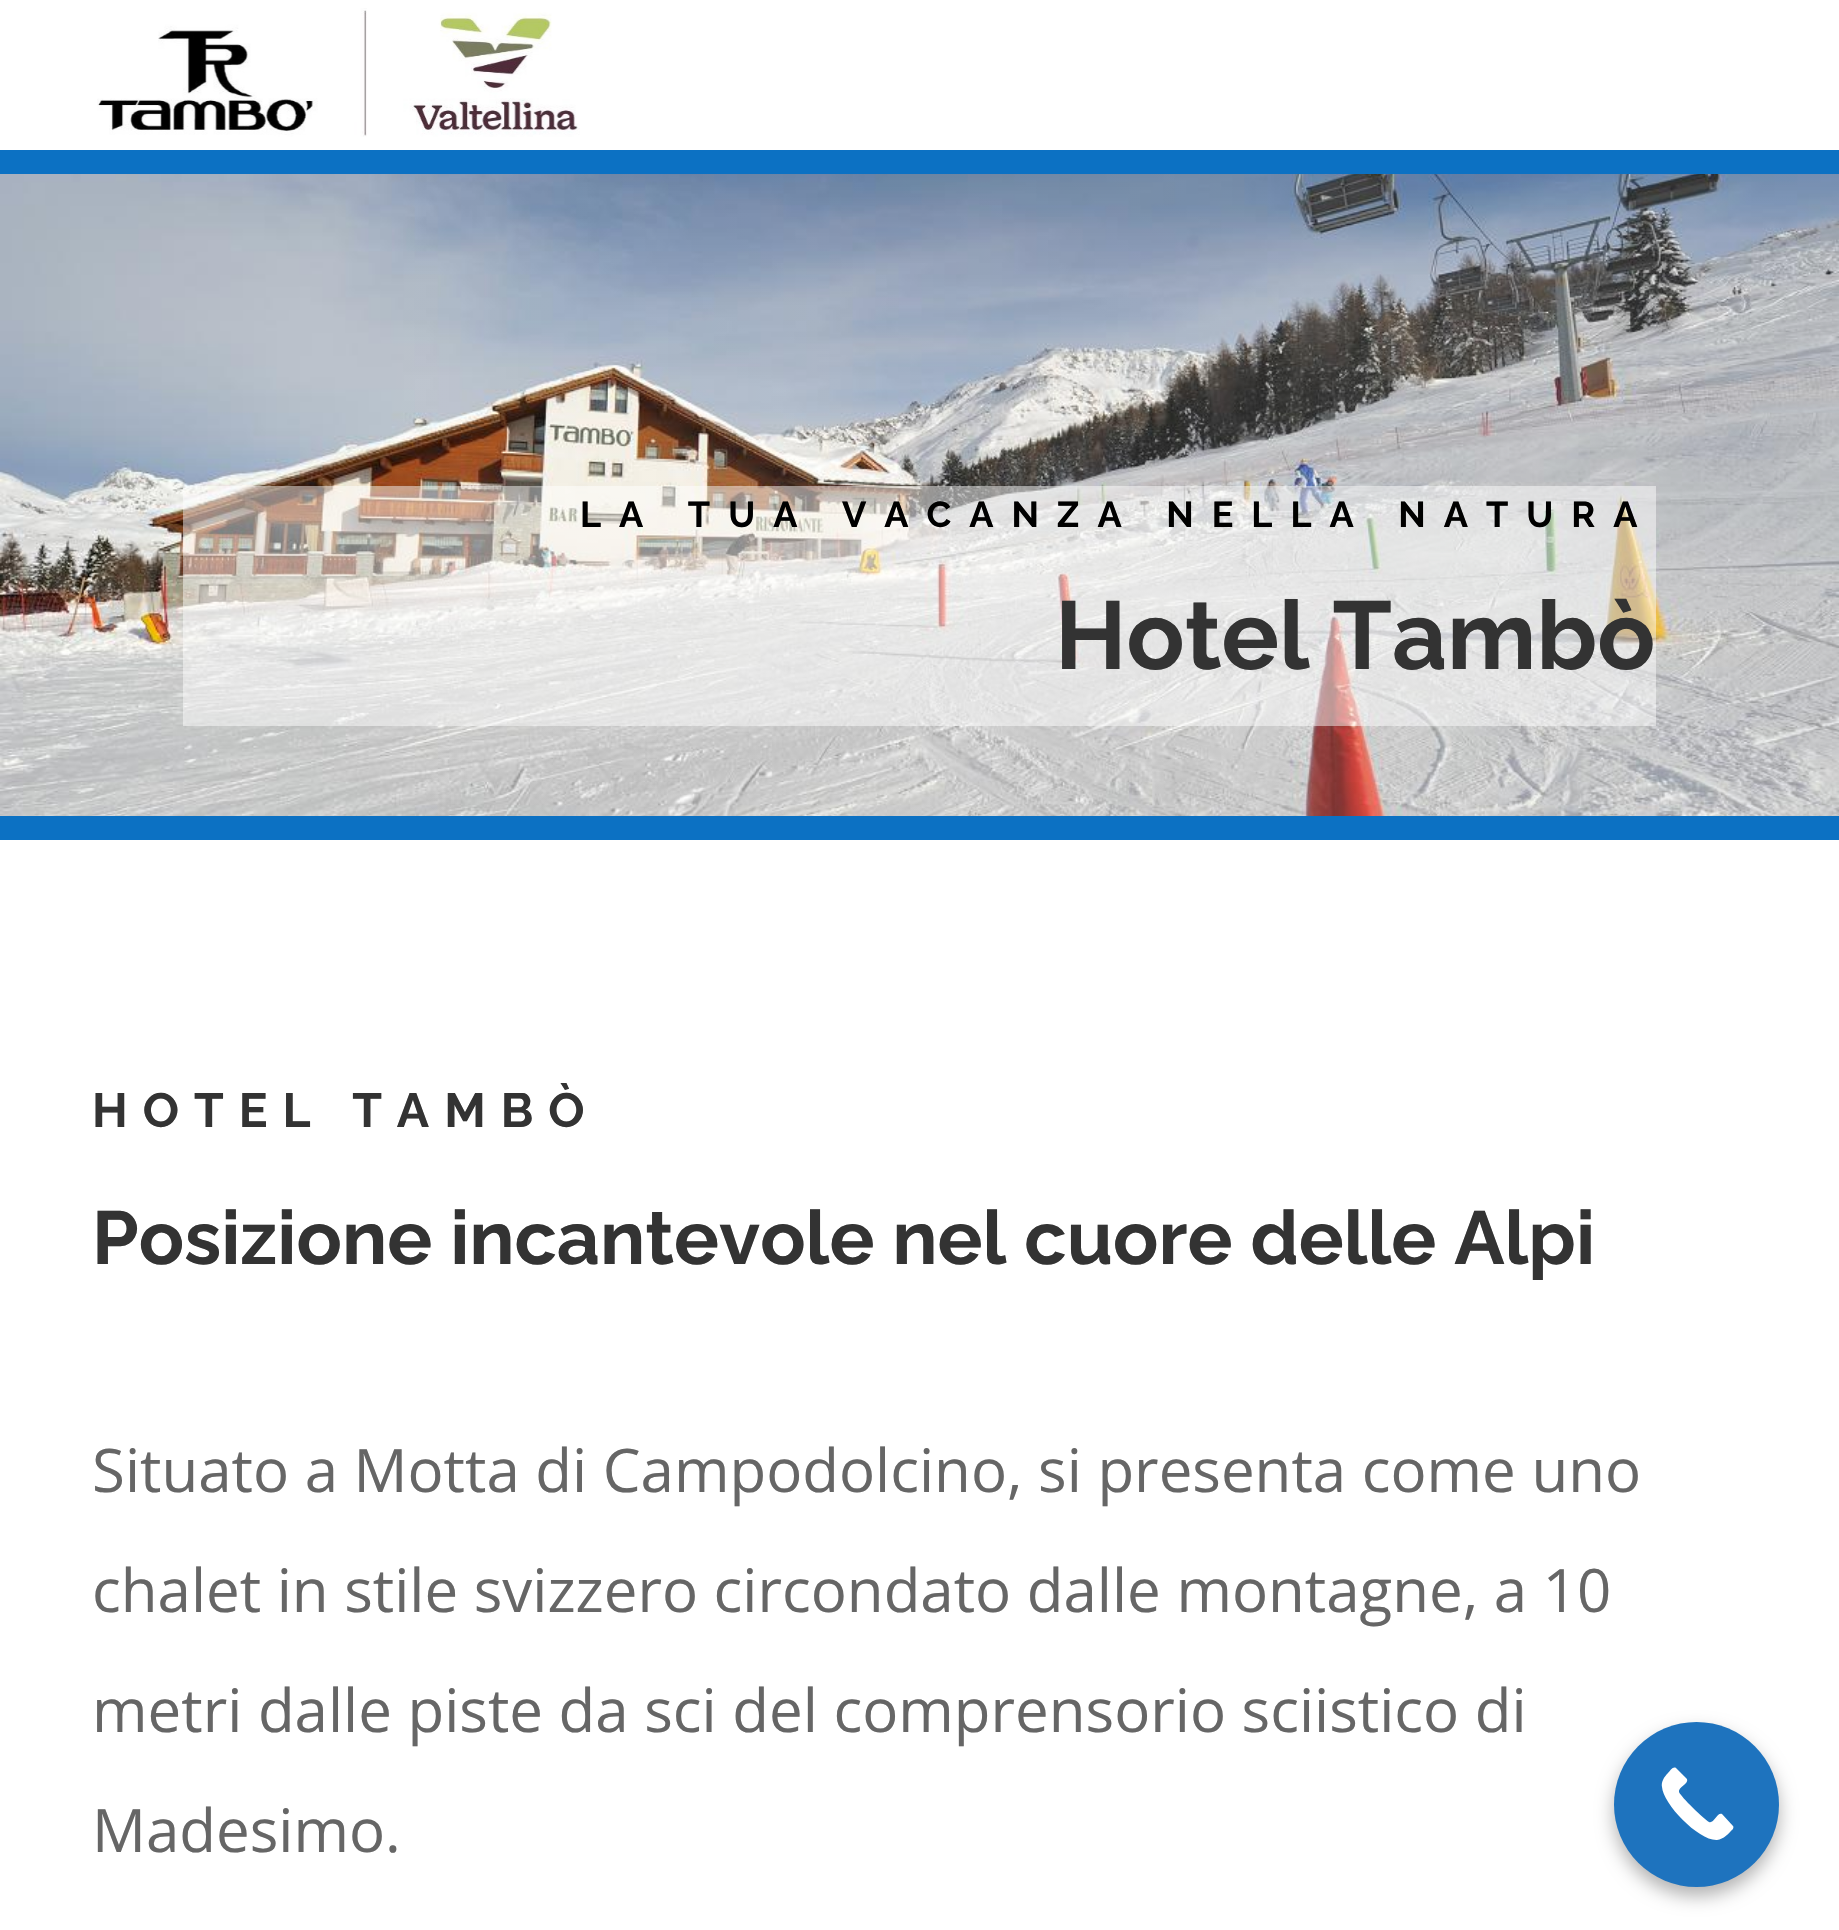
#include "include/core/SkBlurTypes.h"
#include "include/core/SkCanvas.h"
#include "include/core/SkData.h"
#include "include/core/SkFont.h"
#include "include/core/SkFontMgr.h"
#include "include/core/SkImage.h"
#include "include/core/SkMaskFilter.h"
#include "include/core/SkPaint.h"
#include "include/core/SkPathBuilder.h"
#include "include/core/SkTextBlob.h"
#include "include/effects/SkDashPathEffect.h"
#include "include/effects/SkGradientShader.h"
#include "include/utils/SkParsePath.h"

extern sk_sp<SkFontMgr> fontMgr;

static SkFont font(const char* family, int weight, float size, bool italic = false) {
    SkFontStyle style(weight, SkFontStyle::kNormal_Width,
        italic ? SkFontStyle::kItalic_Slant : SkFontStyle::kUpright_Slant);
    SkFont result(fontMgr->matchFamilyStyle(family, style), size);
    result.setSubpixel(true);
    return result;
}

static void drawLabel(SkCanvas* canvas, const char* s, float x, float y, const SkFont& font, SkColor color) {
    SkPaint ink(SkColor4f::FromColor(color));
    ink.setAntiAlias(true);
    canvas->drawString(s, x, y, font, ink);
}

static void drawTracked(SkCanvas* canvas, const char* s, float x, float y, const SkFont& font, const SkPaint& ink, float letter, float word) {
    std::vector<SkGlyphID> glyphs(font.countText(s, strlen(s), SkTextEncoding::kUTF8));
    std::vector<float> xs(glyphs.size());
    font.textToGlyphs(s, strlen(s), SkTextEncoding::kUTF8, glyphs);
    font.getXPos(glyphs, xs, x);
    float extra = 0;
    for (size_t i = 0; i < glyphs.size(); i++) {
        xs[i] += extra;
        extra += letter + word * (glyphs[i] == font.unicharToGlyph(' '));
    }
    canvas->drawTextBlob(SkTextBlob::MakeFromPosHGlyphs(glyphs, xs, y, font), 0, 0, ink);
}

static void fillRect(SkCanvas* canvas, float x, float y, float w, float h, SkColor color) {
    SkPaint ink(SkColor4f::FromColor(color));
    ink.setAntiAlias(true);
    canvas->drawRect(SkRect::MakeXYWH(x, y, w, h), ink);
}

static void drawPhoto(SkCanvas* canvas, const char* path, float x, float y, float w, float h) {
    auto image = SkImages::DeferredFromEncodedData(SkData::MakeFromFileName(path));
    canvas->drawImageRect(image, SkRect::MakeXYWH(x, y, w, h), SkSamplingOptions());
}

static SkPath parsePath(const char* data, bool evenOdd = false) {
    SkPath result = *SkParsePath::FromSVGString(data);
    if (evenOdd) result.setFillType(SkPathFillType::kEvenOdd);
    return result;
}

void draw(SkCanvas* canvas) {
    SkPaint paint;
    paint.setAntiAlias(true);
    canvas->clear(0xFFFFFFFF);
    drawPhoto(canvas, "assets/img1.png", 97, 8, 483, 129);
    drawPhoto(canvas, "assets/img2.png", 0, 174, 1839, 642);
    fillRect(canvas, 0, 150, 1839, 24, 0xFF0C71C3);
    fillRect(canvas, 0, 816, 1839, 24, 0xFF0C71C3);
    fillRect(canvas, 183, 486, 1473, 240, 0x7AFFFFFF);
    SkFont font1 = font("Raleway", 700, 36);
    paint.setColor(0xFF000000);
    drawTracked(canvas, "LA TUA VACANZA NELLA NATURA", 580, 527, font1, paint, 18, 0);
    SkFont font2 = font("Raleway", 700, 96);
    drawLabel(canvas, "Hotel Tambò", 1055, 669, font2, 0xFF333333);
    SkFont font3 = font("Raleway", 700, 48);
    paint.setColor(0xFF333333);
    drawTracked(canvas, "HOTEL TAMBÒ", 92, 1127, font3, paint, 15, 0);
    SkFont font4 = font("Raleway", 700, 75);
    drawLabel(canvas, "Posizione incantevole nel cuore delle Alpi", 92, 1264, font4, 0xFF333333);
    SkFont font5 = font("Open Sans", 400, 60);
    drawLabel(canvas, "Situato a Motta di Campodolcino, si presenta come uno", 92, 1492, font5, 0xFF666666);
    drawLabel(canvas, "chalet in stile svizzero circondato dalle montagne, a 10", 92, 1612, font5, 0xFF666666);
    drawLabel(canvas, "metri dalle piste da sci del comprensorio sciistico di", 92, 1732, font5, 0xFF666666);
    drawLabel(canvas, "Madesimo.", 92, 1852, font5, 0xFF666666);
    paint.setColor(0x4D000000);
    paint.setMaskFilter(SkMaskFilter::MakeBlur(kNormal_SkBlurStyle, 9));
    canvas->drawRoundRect(SkRect::MakeXYWH(1614, 1731, 165, 165), 82.5f, 82.5f, paint);
    paint.setMaskFilter(nullptr);
    paint.setColor(0xFF1E73BE);
    canvas->drawCircle(1696.5f, 1804.5f, 82.5f, paint);
    paint.setColor(0xFFFFFFFF);
    canvas->drawPath(parsePath("M1733 1829C1728 1834 1724 1839 1717 1840C1699 1841 1663 1804 1662 1787C1661 1782 1664 1777 1668 1773C1670 1771 1673 1766 1676 1768L1687 1779C1689 1784 1678 1787 1679 1792C1681 1797 1704 1819 1709 1822C1714 1824 1717 1812 1722 1814L1733 1826C1734 1827 1733 1828 1733 1829Z"), paint);
}
